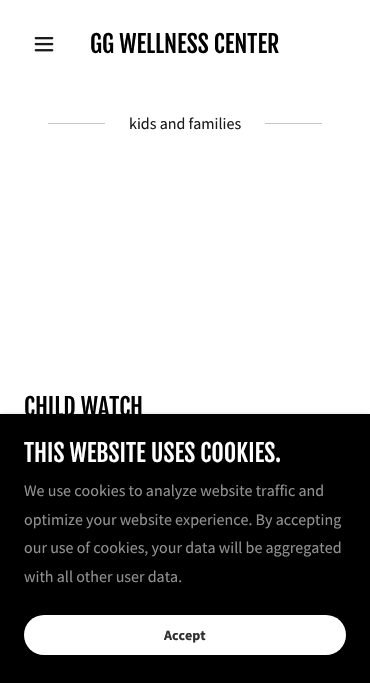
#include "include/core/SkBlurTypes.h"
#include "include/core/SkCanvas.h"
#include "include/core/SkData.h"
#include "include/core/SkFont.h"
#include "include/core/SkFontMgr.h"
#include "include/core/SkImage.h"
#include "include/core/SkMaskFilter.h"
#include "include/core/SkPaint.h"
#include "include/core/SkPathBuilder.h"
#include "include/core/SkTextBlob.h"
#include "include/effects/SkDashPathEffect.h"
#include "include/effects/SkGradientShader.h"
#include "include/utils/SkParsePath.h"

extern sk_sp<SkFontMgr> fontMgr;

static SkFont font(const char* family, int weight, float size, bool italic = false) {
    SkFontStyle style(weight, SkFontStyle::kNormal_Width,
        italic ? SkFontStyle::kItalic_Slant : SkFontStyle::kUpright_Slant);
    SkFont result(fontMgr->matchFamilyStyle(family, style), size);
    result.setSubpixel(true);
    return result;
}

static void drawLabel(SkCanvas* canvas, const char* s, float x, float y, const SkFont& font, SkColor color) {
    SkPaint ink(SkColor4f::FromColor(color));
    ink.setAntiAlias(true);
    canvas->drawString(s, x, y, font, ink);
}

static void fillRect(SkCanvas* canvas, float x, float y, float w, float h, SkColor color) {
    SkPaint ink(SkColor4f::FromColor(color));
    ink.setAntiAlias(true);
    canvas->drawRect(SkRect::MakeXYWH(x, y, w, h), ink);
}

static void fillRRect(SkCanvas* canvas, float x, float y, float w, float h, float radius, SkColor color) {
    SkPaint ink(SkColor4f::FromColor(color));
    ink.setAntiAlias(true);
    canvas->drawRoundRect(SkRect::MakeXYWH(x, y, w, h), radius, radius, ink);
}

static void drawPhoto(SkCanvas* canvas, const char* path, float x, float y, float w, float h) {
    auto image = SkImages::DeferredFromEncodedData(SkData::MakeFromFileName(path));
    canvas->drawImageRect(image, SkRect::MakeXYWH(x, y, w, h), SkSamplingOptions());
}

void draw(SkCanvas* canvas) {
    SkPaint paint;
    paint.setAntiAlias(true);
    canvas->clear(0xFFFFFFFF);
    drawPhoto(canvas, "assets/img1.png", 34, 37, 20, 15);
    SkFont font1 = font("Fjalla One", 400, 24);
    drawLabel(canvas, "GG WELLNESS CENTER", 90, 53, font1, 0xFF000000);
    fillRect(canvas, 48, 123, 57, 1, 0xFFC6C6C6);
    SkFont font2 = font("Source Sans Pro", 400, 16);
    drawLabel(canvas, "kids and families", 129, 129, font2, 0xFF1B1B1B);
    fillRect(canvas, 265, 123, 57, 1, 0xFFC6C6C6);
    drawLabel(canvas, "CHILD WATCH", 24, 416, font1, 0xFF000000);
    paint.setColor(0x4D000000);
    paint.setMaskFilter(SkMaskFilter::MakeBlur(kNormal_SkBlurStyle, 3));
    canvas->drawRect(SkRect::MakeXYWH(0, 416, 370, 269), paint);
    paint.setMaskFilter(nullptr);
    fillRect(canvas, 0, 414, 370, 269, 0xFF000000);
    drawLabel(canvas, "THIS WEBSITE USES COOKIES.", 24, 462, font1, 0xFFFFFFFF);
    drawLabel(canvas, "We use cookies to analyze website traffic and", 24, 496, font2, 0xFF919191);
    drawLabel(canvas, "optimize your website experience. By accepting", 24, 525, font2, 0xFF919191);
    drawLabel(canvas, "our use of cookies, your data will be aggregated", 24, 553, font2, 0xFF919191);
    drawLabel(canvas, "with all other user data.", 24, 582, font2, 0xFF919191);
    fillRRect(canvas, 24, 615, 322, 40, 20, 0xFFFFFFFF);
    SkFont font3 = font("Source Sans Pro", 700, 14);
    drawLabel(canvas, "Accept", 164, 640, font3, 0xFF303030);
}
